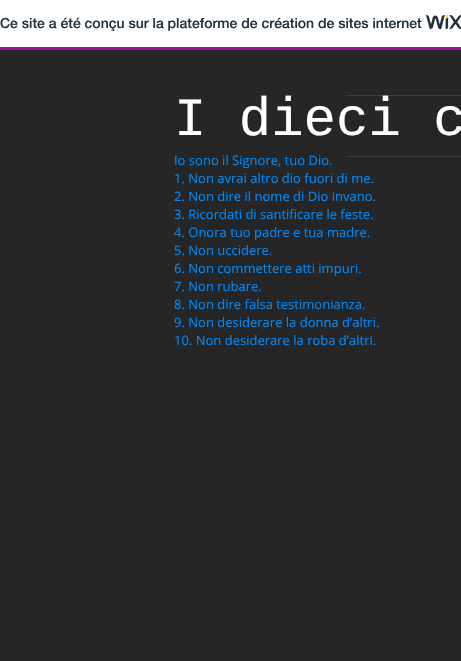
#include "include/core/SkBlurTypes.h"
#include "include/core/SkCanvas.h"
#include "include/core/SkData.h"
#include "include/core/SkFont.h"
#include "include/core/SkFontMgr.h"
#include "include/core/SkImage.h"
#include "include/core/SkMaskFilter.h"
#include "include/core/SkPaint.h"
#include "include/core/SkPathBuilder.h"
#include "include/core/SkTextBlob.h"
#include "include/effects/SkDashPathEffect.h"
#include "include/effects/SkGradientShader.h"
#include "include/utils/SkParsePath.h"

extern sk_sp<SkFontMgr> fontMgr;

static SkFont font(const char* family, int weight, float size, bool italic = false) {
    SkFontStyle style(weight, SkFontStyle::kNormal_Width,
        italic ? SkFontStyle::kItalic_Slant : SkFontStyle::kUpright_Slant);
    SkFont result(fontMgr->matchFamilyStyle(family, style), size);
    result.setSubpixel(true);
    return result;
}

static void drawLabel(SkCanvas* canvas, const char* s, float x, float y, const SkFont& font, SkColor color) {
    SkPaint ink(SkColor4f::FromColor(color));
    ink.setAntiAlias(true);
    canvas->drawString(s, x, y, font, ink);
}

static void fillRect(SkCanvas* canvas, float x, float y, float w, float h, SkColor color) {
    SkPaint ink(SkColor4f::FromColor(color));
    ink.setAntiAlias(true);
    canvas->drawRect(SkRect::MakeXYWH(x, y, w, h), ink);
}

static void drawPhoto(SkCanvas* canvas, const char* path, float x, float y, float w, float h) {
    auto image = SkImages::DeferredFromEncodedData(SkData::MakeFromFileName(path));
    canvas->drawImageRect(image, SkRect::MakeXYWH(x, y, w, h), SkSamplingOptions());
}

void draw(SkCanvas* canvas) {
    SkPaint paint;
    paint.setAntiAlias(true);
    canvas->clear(0xFFFFFFFF);
    fillRect(canvas, 0, 47, 461, 3, 0xFFA0138E);
    SkFont font1 = font("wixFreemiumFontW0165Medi", 500, 14);
    drawLabel(canvas, "Ce site a été conçu sur la plateforme de création de sites internet", 0, 28, font1, 0xFF20303C);
    drawPhoto(canvas, "assets/img1.png", 426, 15, 35, 15);
    fillRect(canvas, 0, 50, 461, 611, 0xFF272626);
    fillRect(canvas, 346, 95, 115, 1, 0xFF3E3D3D);
    SkFont font2 = font("Liberation Mono", 400, 54);
    drawLabel(canvas, "I dieci c", 174, 135, font2, 0xFFFFFFFF);
    SkFont font3 = font("Open Sans", 400, 13);
    drawLabel(canvas, "Io sono il Signore, tuo Dio.", 174, 165, font3, 0xFF008AFC);
    drawLabel(canvas, "1. Non avrai altro dio fuori di me.", 174, 183, font3, 0xFF008AFC);
    drawLabel(canvas, "2. Non dire il nome di Dio invano.", 174, 201, font3, 0xFF008AFC);
    drawLabel(canvas, "3. Ricordati di santificare le feste.", 174, 219, font3, 0xFF008AFC);
    drawLabel(canvas, "4. Onora tuo padre e tua madre.", 174, 237, font3, 0xFF008AFC);
    drawLabel(canvas, "5. Non uccidere.", 174, 255, font3, 0xFF008AFC);
    drawLabel(canvas, "6. Non commettere atti impuri.", 174, 273, font3, 0xFF008AFC);
    drawLabel(canvas, "7. Non rubare.", 174, 291, font3, 0xFF008AFC);
    drawLabel(canvas, "8. Non dire falsa testimonianza.", 174, 309, font3, 0xFF008AFC);
    drawLabel(canvas, "9. Non desiderare la donna d’altri.", 174, 327, font3, 0xFF008AFC);
    drawLabel(canvas, "10. Non desiderare la roba d’altri.", 174, 345, font3, 0xFF008AFC);
    fillRect(canvas, 346, 156, 115, 1, 0xFF3E3D3D);
}
